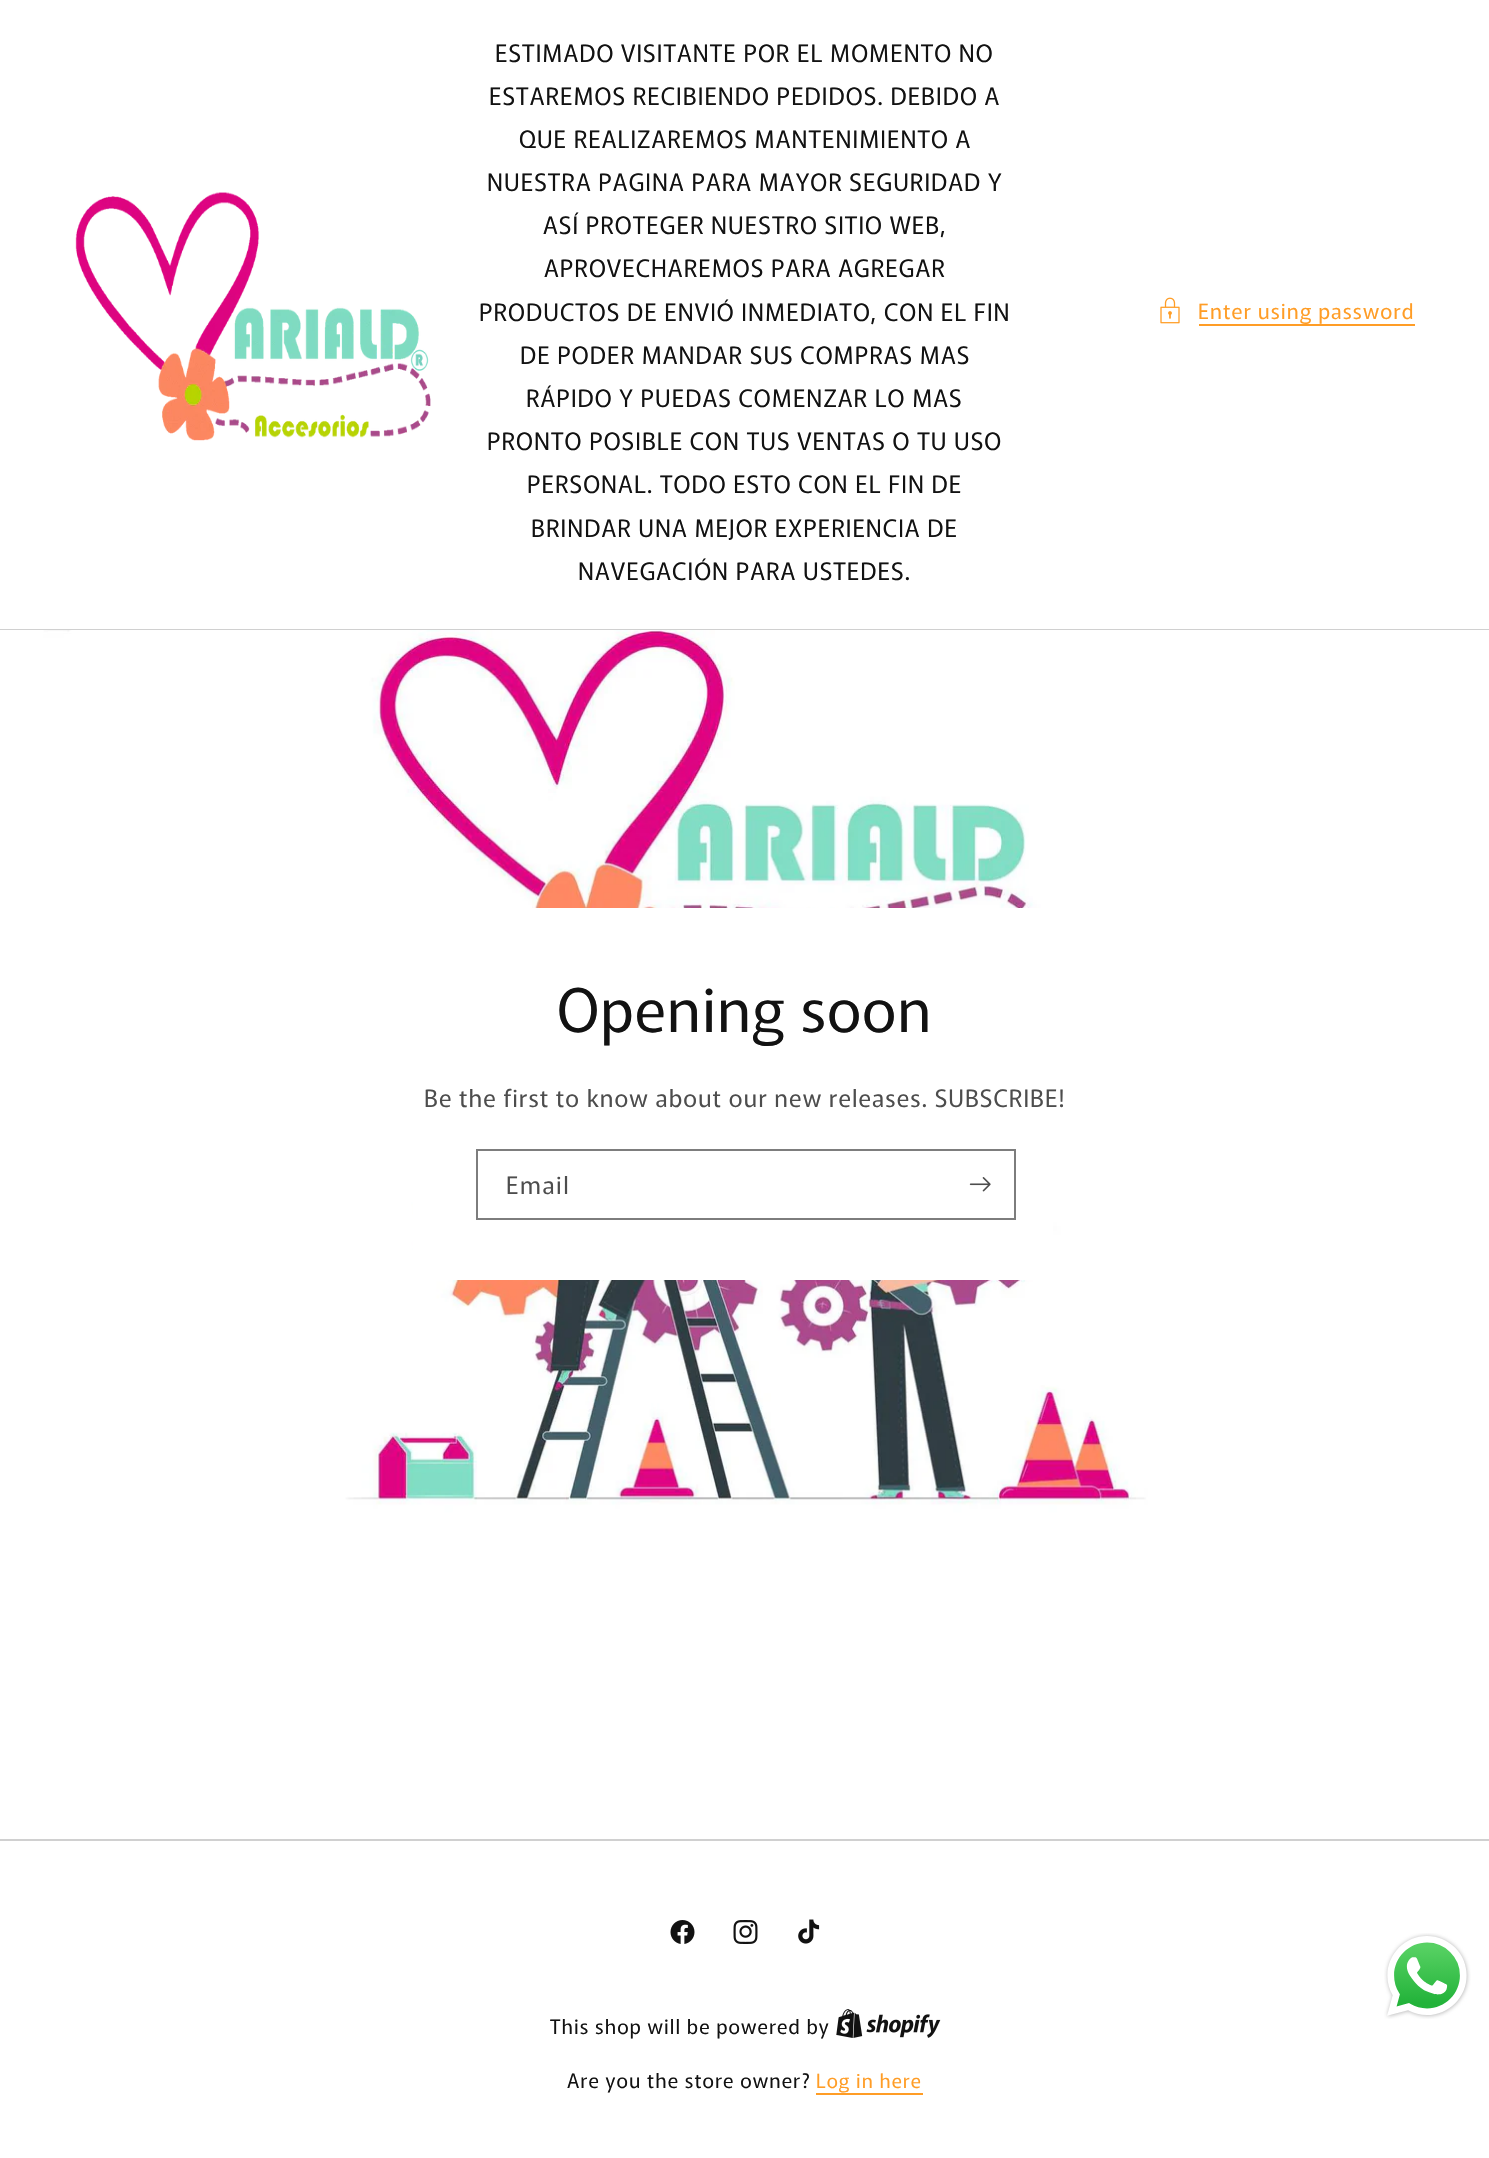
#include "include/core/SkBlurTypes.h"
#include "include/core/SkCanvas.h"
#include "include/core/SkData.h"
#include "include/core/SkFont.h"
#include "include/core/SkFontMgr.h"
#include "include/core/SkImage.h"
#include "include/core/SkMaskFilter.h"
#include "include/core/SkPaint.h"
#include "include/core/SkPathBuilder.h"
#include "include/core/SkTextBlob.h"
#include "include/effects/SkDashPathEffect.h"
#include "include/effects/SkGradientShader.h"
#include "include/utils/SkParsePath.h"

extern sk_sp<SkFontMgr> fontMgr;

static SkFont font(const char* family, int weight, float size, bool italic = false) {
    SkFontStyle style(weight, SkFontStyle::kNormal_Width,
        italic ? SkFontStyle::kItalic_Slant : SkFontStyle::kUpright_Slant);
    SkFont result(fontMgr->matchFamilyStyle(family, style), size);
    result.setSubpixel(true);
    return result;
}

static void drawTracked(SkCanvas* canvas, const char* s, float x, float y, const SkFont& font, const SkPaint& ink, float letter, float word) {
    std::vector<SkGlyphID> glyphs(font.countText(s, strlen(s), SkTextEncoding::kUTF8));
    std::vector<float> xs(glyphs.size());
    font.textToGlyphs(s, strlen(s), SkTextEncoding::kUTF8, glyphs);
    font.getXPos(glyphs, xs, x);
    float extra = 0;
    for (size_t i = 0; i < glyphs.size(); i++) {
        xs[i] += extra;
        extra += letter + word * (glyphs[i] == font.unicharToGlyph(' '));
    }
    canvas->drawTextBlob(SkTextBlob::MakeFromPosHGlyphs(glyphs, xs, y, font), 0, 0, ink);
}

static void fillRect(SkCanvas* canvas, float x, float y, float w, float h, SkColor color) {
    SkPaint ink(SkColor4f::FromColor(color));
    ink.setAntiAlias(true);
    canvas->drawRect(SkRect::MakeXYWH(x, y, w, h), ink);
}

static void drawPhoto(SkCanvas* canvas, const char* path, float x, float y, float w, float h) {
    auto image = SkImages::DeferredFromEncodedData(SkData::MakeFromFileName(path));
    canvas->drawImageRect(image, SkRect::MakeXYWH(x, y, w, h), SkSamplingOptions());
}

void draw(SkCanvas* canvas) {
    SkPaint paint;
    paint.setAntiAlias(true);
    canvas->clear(0xFFFFFFFF);
    drawPhoto(canvas, "assets/img1.png", 75, 192, 356, 249);
    SkFont font1 = font("Murecho", 400, 24);
    paint.setColor(0xFF121212);
    drawTracked(canvas, "ESTIMADO VISITANTE POR EL MOMENTO NO", 495, 62, font1, paint, 1.05f, 0);
    drawTracked(canvas, "ESTAREMOS RECIBIENDO PEDIDOS. DEBIDO A", 489, 105, font1, paint, 1.05f, 0);
    drawTracked(canvas, "QUE REALIZAREMOS MANTENIMIENTO A", 519, 148, font1, paint, 1.05f, 0);
    drawTracked(canvas, "NUESTRA PAGINA PARA MAYOR SEGURIDAD Y", 487, 191, font1, paint, 1.05f, 0);
    drawTracked(canvas, "ASÍ PROTEGER NUESTRO SITIO WEB,", 543, 234, font1, paint, 1.05f, 0);
    drawTracked(canvas, "APROVECHAREMOS PARA AGREGAR", 544, 277, font1, paint, 1.05f, 0);
    drawTracked(canvas, "PRODUCTOS DE ENVIÓ INMEDIATO, CON EL FIN", 479, 321, font1, paint, 1.05f, 0);
    drawTracked(canvas, "DE PODER MANDAR SUS COMPRAS MAS", 520, 364, font1, paint, 1.05f, 0);
    drawTracked(canvas, "RÁPIDO Y PUEDAS COMENZAR LO MAS", 526, 407, font1, paint, 1.05f, 0);
    drawTracked(canvas, "PRONTO POSIBLE CON TUS VENTAS O TU USO", 487, 450, font1, paint, 1.05f, 0);
    drawTracked(canvas, "PERSONAL. TODO ESTO CON EL FIN DE", 527, 493, font1, paint, 1.05f, 0);
    drawTracked(canvas, "BRINDAR UNA MEJOR EXPERIENCIA DE", 531, 537, font1, paint, 1.05f, 0);
    drawTracked(canvas, "NAVEGACIÓN PARA USTEDES.", 578, 580, font1, paint, 1.05f, 0);
    drawPhoto(canvas, "assets/img2.png", 1160, 297, 20, 27);
    SkFont font2 = font("Murecho", 400, 21);
    paint.setColor(0xFFFF9D26);
    drawTracked(canvas, "Enter using password", 1198, 319, font2, paint, 1.05f, 0);
    fillRect(canvas, 1199, 324, 216, 2, 0xFFFF9D26);
    fillRect(canvas, 0, 629, 1489, 1, 0xFFD0D0D0);
    drawPhoto(canvas, "assets/img3.png", 0, 630, 1489, 927);
    fillRect(canvas, 413, 908, 640, 372, 0xFFFFFFFF);
    SkFont font3 = font("Murecho", 400, 60);
    paint.setColor(0xFF121212);
    drawTracked(canvas, "Opening soon", 557, 1032, font3, paint, 0.9f, 0);
    paint.setColor(0xFF4D4D4D);
    drawTracked(canvas, "Be the first to know about our new releases. SUBSCRIBE!", 424, 1107, font1, paint, 1.05f, 0);
    paint.setStroke(true);
    paint.setStrokeWidth(2);
    paint.setColor(0xFF7D7D7D);
    canvas->drawRect(SkRect::MakeXYWH(477, 1150, 538, 69), paint);
    paint.setStroke(false);
    paint.setColor(0xFF4D4D4D);
    drawTracked(canvas, "Email", 506, 1194, font1, paint, 1.5f, 0);
    drawPhoto(canvas, "assets/img4.png", 969, 1177, 22, 15);
    drawPhoto(canvas, "assets/img5.png", 1384, 1933, 87, 86);
    fillRect(canvas, 0, 1839, 1489, 2, 0xFFD0D0D0);
    drawPhoto(canvas, "assets/img6.png", 670, 1920, 25, 24);
    drawPhoto(canvas, "assets/img7.png", 733, 1920, 25, 24);
    drawPhoto(canvas, "assets/img8.png", 798, 1919, 22, 25);
    SkFont font4 = font("Murecho", 400, 20);
    paint.setColor(0xFF121212);
    drawTracked(canvas, "This shop will be powered by", 550, 2034, font4, paint, 1.05f, 0);
    drawPhoto(canvas, "assets/img9.png", 836, 2009, 105, 29);
    drawTracked(canvas, "Are you the store owner?", 567, 2088, font4, paint, 1.05f, 0);
    SkFont font5 = font("Murecho", 400, 19.5f);
    paint.setColor(0xFFFF9D26);
    drawTracked(canvas, "Log in here", 816, 2088, font5, paint, 1.05f, 0);
    fillRect(canvas, 816, 2093, 107, 2, 0xFFFF9D26);
}
